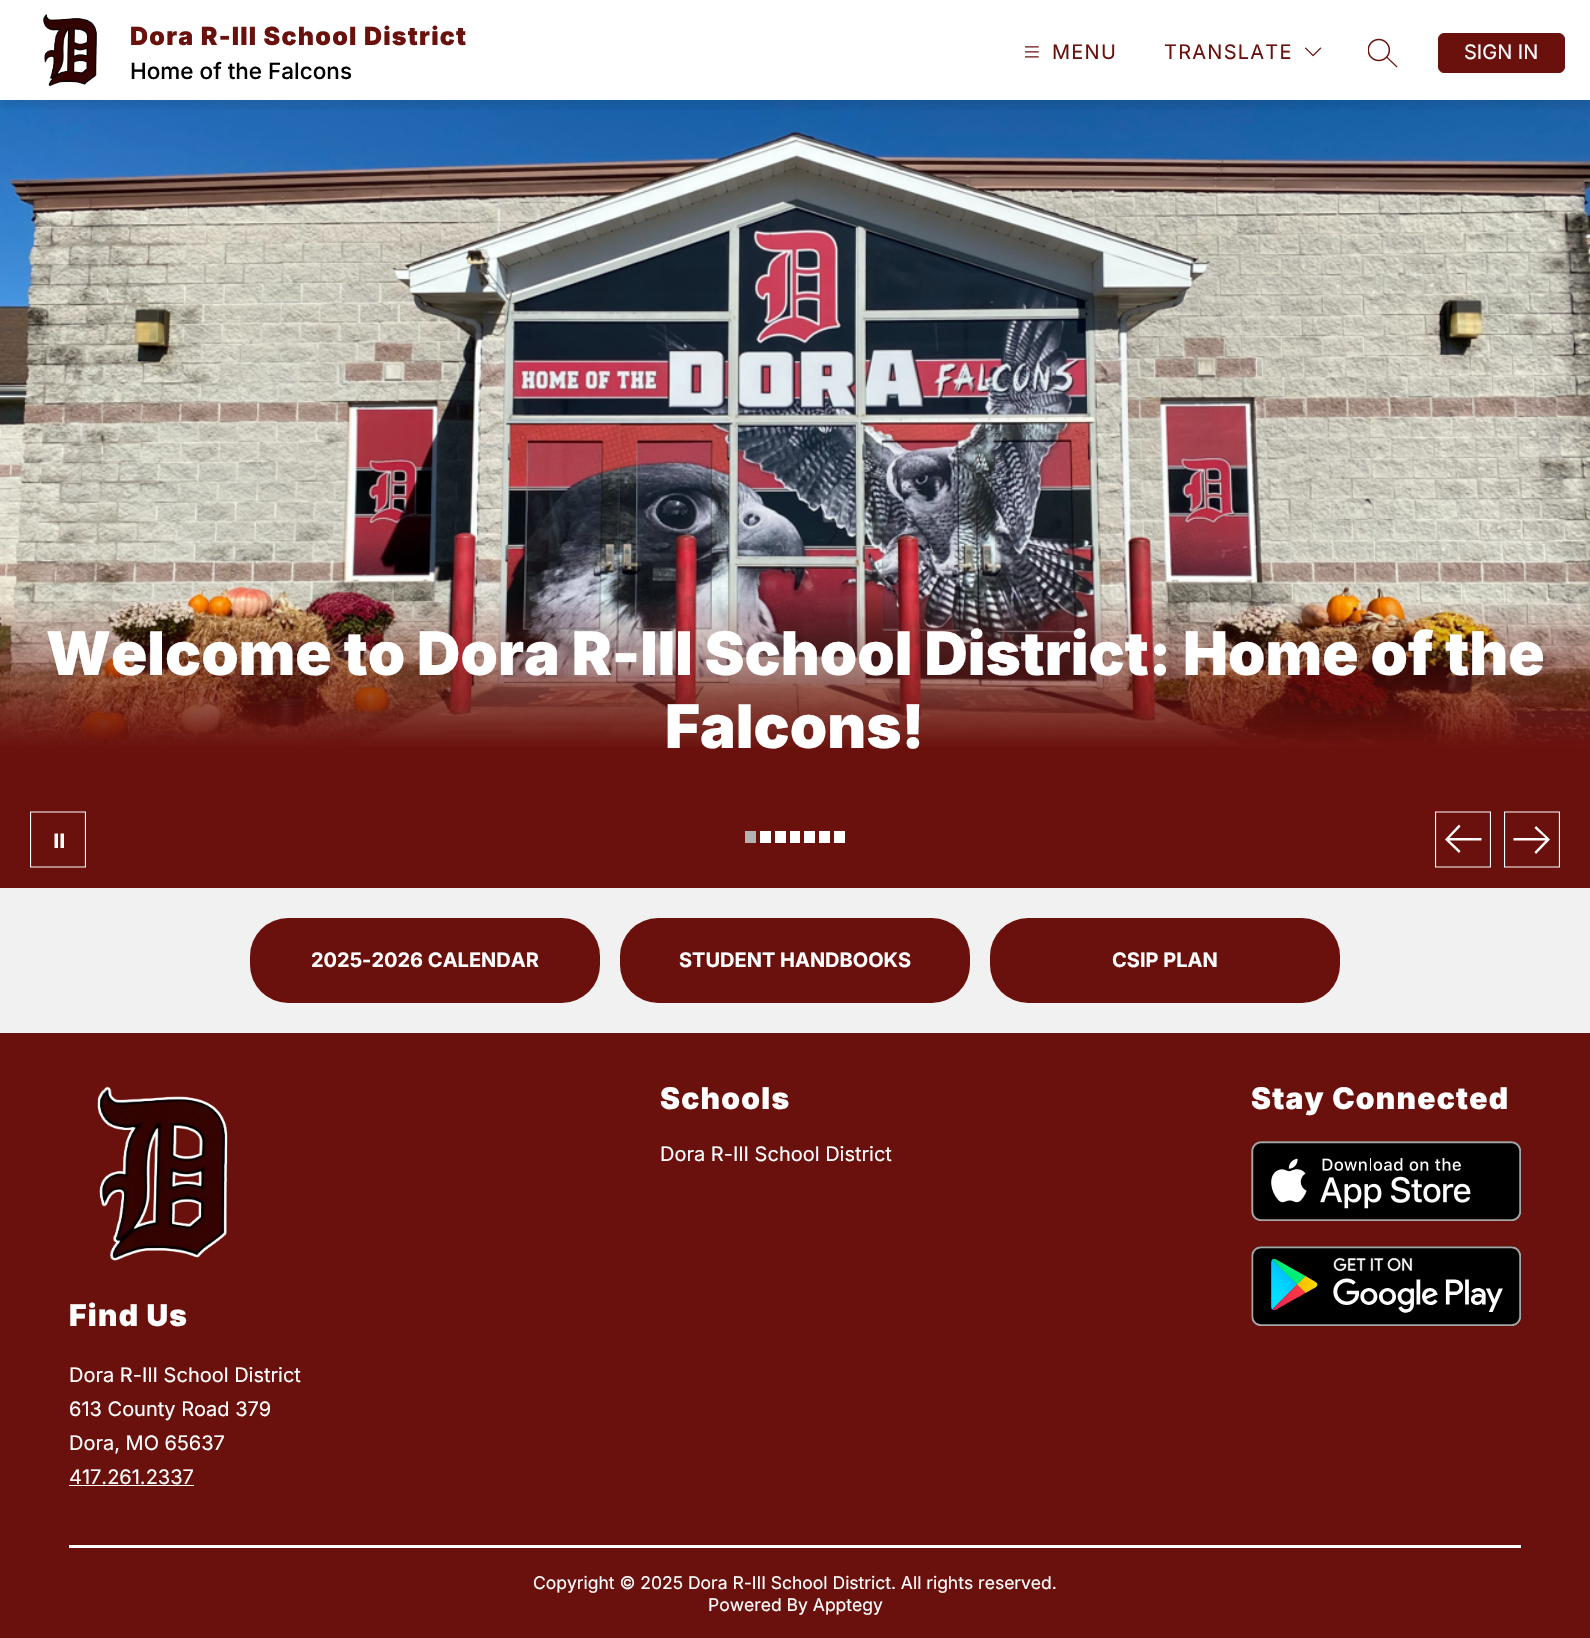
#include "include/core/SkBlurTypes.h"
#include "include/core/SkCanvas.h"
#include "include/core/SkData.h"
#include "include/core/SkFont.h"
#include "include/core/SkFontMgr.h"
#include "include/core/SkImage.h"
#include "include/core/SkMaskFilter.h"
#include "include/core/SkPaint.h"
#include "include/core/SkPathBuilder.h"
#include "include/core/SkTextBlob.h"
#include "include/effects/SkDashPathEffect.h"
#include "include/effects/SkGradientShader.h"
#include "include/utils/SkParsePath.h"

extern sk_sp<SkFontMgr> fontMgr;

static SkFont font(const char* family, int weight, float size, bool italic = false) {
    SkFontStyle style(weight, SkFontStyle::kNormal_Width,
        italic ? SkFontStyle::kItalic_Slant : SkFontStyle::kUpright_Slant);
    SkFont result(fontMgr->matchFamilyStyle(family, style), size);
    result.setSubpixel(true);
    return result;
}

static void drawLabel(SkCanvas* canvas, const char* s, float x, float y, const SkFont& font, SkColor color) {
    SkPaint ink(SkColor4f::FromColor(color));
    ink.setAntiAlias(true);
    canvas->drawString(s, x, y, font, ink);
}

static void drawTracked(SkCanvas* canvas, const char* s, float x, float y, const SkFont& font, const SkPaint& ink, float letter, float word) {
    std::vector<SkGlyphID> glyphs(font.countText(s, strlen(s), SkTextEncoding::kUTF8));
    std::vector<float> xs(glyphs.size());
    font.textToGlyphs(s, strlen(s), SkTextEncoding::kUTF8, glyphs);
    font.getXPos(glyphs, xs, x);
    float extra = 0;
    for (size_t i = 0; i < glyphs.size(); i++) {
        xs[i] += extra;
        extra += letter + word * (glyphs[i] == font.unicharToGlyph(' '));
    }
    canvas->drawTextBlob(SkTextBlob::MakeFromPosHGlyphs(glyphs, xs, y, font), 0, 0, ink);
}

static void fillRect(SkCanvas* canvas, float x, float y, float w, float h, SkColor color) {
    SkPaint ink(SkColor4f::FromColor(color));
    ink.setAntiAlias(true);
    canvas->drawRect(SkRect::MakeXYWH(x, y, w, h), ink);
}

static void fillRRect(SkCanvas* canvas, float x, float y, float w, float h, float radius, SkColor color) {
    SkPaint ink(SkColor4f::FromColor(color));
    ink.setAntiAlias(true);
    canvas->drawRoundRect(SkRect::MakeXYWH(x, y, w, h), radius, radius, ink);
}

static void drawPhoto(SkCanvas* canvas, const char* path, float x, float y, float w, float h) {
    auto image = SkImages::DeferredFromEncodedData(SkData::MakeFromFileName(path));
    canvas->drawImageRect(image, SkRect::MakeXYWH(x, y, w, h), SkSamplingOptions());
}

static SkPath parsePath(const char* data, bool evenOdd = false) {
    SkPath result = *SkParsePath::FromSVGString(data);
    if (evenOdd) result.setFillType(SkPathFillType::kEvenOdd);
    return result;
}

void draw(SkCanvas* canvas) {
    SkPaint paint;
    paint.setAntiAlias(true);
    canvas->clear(0xFFFFFFFF);
    drawPhoto(canvas, "assets/img5.png", 0, 100, 1590, 647);
    canvas->save();
    canvas->clipRect(SkRect::MakeXYWH(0, 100, 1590, 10));
    paint.setColor(0x1A000000);
    paint.setMaskFilter(SkMaskFilter::MakeBlur(kNormal_SkBlurStyle, 6));
    canvas->drawRect(SkRect::MakeXYWH(0, 5, 1590, 100), paint);
    paint.setMaskFilter(nullptr);
    canvas->restore();
    drawPhoto(canvas, "assets/img1.png", 43, 14, 54, 73);
    SkFont font1 = font("Inter", 900, 25);
    paint.setColor(0xFF6A110D);
    drawTracked(canvas, "Dora R-III School District", 130, 45, font1, paint, 1.25f, 0);
    SkFont font2 = font("Inter", 500, 22.5f);
    drawLabel(canvas, "Home of the Falcons", 130, 79, font2, 0xFF000000);
    drawPhoto(canvas, "assets/img2.png", 1025, 46, 14, 12);
    SkFont font3 = font("Inter", 400, 20);
    drawTracked(canvas, "MENU", 1052, 59, font3, paint, 1.25f, 0);
    drawTracked(canvas, "TRANSLATE", 1164, 59, font3, paint, 1.25f, 0);
    drawPhoto(canvas, "assets/img3.png", 1305, 47, 17, 10);
    drawPhoto(canvas, "assets/img4.png", 1368, 38, 30, 30);
    canvas->drawRoundRect(SkRect::MakeXYWH(1438.5f, 33.5f, 126, 39), 5.5f, 5.5f, paint);
    paint.setStroke(true);
    paint.setStrokeWidth(1);
    canvas->drawRoundRect(SkRect::MakeXYWH(1438.5f, 33.5f, 126, 39), 5.5f, 5.5f, paint);
    drawLabel(canvas, "SIGN IN", 1464, 59, font3, 0xFFFFFFFF);
    fillRect(canvas, 0, 783, 1590, 105, 0xFF6A110D);
    paint.setStroke(false);
    {
        const SkColor colors[] = {0x006A110D, 0xFF6A110D};
        const float stops[] = {0, 0.81f};
        const SkPoint ends[] = {{795, 597}, {795, 783}};
        paint.setShader(SkGradientShader::MakeLinear(ends, colors, stops, 2, SkTileMode::kClamp));
        paint.setAlpha(255);
    }
    canvas->drawRect(SkRect::MakeXYWH(0, 600, 1590, 183), paint);
    SkFont font4 = font("Inter", 900, 60);
    drawLabel(canvas, "Welcome to Dora R-III School District: Home of the", 46, 675, font4, 0xFFFFFFFF);
    drawLabel(canvas, "Falcons!", 665, 748, font4, 0xFFFFFFFF);
    canvas->save();
    canvas->clipRect(SkRect::MakeXYWH(30, 811, 56, 57));
    paint.setStroke(true);
    paint.setStrokeWidth(1.2f);
    paint.setShader(nullptr);
    paint.setColor(0xFFFFFFFF);
    canvas->drawPath(parsePath("M30.5 812H85.5V867H30.5Z"), paint);
    canvas->restore();
    paint.setStroke(false);
    canvas->drawPath(parsePath("M58 833.5H54.5V848H58ZM64 833.5H60.5V848H64Z", true), paint);
    fillRect(canvas, 745, 831, 11, 12, 0xFFB2B2B2);
    fillRect(canvas, 760, 831, 11, 12, 0xFFFFFFFF);
    fillRect(canvas, 775, 831, 11, 12, 0xFFFFFFFF);
    fillRect(canvas, 790, 831, 10, 12, 0xFFFFFFFF);
    fillRect(canvas, 804, 831, 11, 12, 0xFFFFFFFF);
    fillRect(canvas, 819, 831, 11, 12, 0xFFFFFFFF);
    fillRect(canvas, 834, 831, 11, 12, 0xFFFFFFFF);
    canvas->save();
    canvas->clipRect(SkRect::MakeXYWH(1435, 811, 56, 57));
    paint.setStroke(true);
    canvas->drawPath(parsePath("M1490.5 867H1435.5V812H1490.5Z"), paint);
    canvas->restore();
    paint.setStroke(false);
    canvas->drawPath(parsePath("M1459 853L1445 839.5L1459 824.5L1460.5 826.5L1449.5 838H1481.5V840.5H1449.5L1460.5 851Z"), paint);
    canvas->save();
    canvas->clipRect(SkRect::MakeXYWH(1504, 811, 56, 57));
    paint.setStroke(true);
    canvas->drawPath(parsePath("M1504.5 812H1559.5V867H1504.5Z"), paint);
    canvas->restore();
    paint.setStroke(false);
    canvas->drawPath(parsePath("M1536 826L1550 839.5L1536 854L1534.5 852L1545.5 840.5H1513.5V838H1545.5L1534.5 828Z"), paint);
    fillRect(canvas, 0, 888, 1590, 145, 0xFFF1F1F1);
    fillRRect(canvas, 250, 918, 350, 85, 38, 0xFF6A110D);
    SkFont font5 = font("Inter", 700, 20);
    drawLabel(canvas, "2025-2026 CALENDAR", 311, 967, font5, 0xFFFFFFFF);
    fillRRect(canvas, 620, 918, 350, 85, 38, 0xFF6A110D);
    drawLabel(canvas, "STUDENT HANDBOOKS", 679, 967, font5, 0xFFFFFFFF);
    fillRRect(canvas, 990, 918, 350, 85, 38, 0xFF6A110D);
    drawLabel(canvas, "CSIP PLAN", 1112, 967, font5, 0xFFFFFFFF);
    fillRect(canvas, 0, 1033, 1590, 605, 0xFF6A110D);
    SkFont font6 = font("Inter", 900, 30);
    drawTracked(canvas, "Schools", 660, 1109, font6, paint, 1.25f, 0);
    drawLabel(canvas, "Dora R-III School District", 660, 1161, font3, 0xFFFFFFFF);
    drawTracked(canvas, "Stay Connected", 1251, 1109, font6, paint, 1.25f, 0);
    drawPhoto(canvas, "assets/img6.png", 1251, 1141, 270, 80);
    drawPhoto(canvas, "assets/img7.png", 1251, 1246, 270, 80);
    drawPhoto(canvas, "assets/img8.png", 97, 1086, 131, 175);
    drawTracked(canvas, "Find Us", 69, 1326, font6, paint, 1.25f, 0);
    drawLabel(canvas, "Dora R-III School District", 69, 1382, font3, 0xFFFFFFFF);
    drawLabel(canvas, "613 County Road 379", 69, 1416, font3, 0xFFFFFFFF);
    drawLabel(canvas, "Dora, MO 65637", 69, 1450, font3, 0xFFFFFFFF);
    drawLabel(canvas, "417.261.2337", 69, 1484, font3, 0xFFFFFFFF);
    fillRect(canvas, 69, 1485, 125, 1, 0xFFFFFFFF);
    fillRect(canvas, 69, 1545, 1452, 3, 0xFFFFFFFF);
    SkFont font7 = font("Inter", 400, 17.5f);
    drawLabel(canvas, "Copyright © 2025 Dora R-III School District. All rights reserved.", 533, 1589, font7, 0xFFFFFFFF);
    drawLabel(canvas, "Powered By Apptegy", 708, 1611, font7, 0xFFFFFFFF);
}
